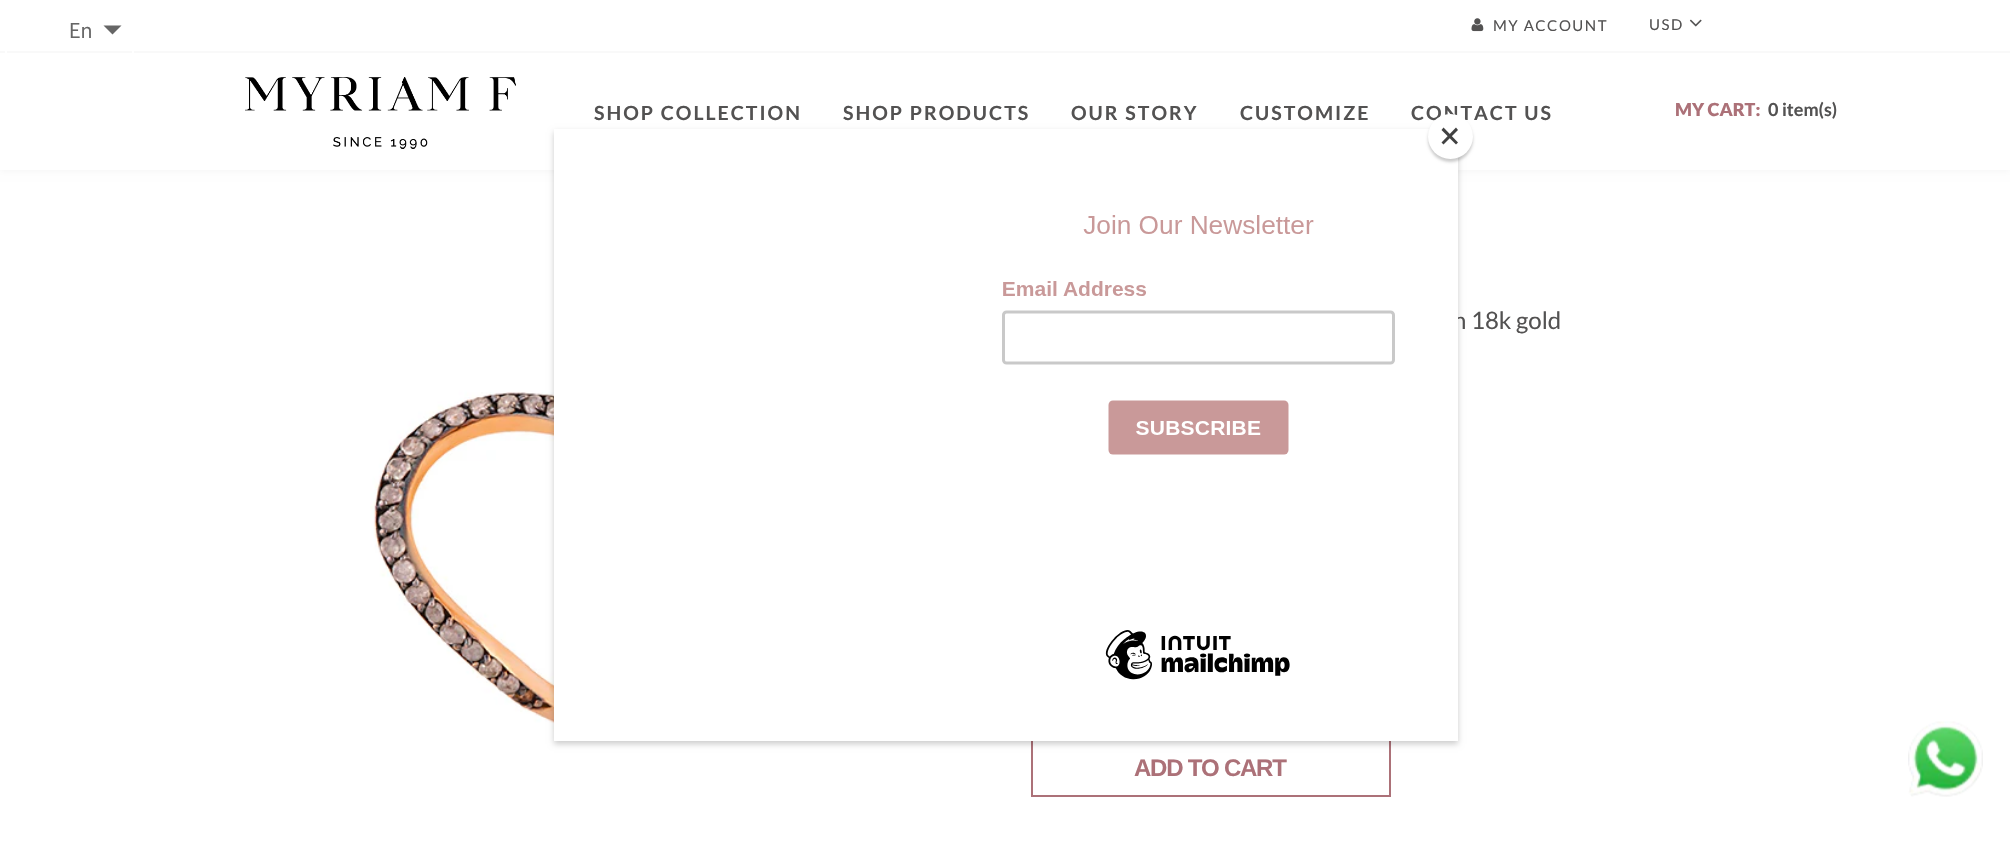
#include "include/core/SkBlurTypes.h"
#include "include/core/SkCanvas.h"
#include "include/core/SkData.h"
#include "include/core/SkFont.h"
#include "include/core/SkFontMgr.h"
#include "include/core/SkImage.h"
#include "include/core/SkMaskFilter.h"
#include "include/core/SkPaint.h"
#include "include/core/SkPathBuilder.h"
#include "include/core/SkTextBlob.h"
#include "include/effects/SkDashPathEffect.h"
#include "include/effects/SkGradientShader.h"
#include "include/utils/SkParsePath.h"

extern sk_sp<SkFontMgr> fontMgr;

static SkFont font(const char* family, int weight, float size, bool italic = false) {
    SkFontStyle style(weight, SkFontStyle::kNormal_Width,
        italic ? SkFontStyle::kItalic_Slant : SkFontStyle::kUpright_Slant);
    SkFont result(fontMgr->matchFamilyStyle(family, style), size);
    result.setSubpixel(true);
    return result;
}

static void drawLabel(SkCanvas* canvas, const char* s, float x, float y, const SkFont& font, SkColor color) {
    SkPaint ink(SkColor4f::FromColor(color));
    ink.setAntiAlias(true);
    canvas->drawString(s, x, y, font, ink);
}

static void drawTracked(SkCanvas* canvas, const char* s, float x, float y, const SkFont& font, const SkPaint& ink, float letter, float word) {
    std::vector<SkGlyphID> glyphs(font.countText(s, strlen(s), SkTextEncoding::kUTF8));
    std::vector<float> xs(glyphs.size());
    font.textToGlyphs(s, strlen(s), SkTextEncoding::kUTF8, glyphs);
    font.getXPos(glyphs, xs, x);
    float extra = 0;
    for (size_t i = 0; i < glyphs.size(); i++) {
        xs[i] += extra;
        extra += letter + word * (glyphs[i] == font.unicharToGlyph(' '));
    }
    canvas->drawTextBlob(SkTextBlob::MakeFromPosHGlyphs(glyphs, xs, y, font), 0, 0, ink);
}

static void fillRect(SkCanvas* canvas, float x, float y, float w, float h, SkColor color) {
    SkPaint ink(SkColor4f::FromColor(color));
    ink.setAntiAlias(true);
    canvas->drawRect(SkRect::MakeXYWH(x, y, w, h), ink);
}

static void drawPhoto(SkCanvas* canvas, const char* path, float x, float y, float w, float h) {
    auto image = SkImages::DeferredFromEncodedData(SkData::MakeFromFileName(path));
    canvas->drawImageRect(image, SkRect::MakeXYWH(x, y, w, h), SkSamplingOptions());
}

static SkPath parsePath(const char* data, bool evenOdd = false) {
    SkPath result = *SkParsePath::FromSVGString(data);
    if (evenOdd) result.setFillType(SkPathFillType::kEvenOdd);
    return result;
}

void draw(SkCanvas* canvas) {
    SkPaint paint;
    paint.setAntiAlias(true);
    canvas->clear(0xFFFFFFFF);
    paint.setColor(0x0D000000);
    paint.setMaskFilter(SkMaskFilter::MakeBlur(kNormal_SkBlurStyle, 4));
    canvas->drawRect(SkRect::MakeXYWH(0, 0, 2010, 170), paint);
    paint.setMaskFilter(nullptr);
    fillRect(canvas, 0, 0, 2010, 170, 0xFFFFFFFF);
    fillRect(canvas, 0, 51, 2010, 2, 0xFFF9F9F9);
    paint.setStroke(true);
    paint.setStrokeWidth(2);
    paint.setColor(0xFFFFFFFF);
    canvas->drawRect(SkRect::MakeXYWH(6, 6, 127, 49), paint);
    SkFont font1 = font("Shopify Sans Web", 400, 21);
    drawLabel(canvas, "En", 69, 38, font1, 0xFF666666);
    paint.setStroke(false);
    paint.setColor(0xFF666666);
    canvas->drawPath(parsePath("M103.5 25.5L112.5 34.5L121.5 25.5Z"), paint);
    drawPhoto(canvas, "assets/img1.png", 1471, 18, 13, 14);
    SkFont font2 = font("Lato", 400, 15);
    paint.setColor(0xFF535252);
    drawTracked(canvas, "MY ACCOUNT", 1493, 31, font2, paint, 1.5f, 0);
    drawTracked(canvas, "USD", 1649, 30, font2, paint, 1.5f, 0);
    drawPhoto(canvas, "assets/img2.png", 1689, 19, 13, 8);
    drawPhoto(canvas, "assets/img3.png", 245, 77, 271, 72);
    SkFont font3 = font("Lato", 700, 19.5f);
    drawTracked(canvas, "SHOP COLLECTION", 594, 120, font3, paint, 2, 0);
    drawTracked(canvas, "SHOP PRODUCTS", 843, 120, font3, paint, 2, 0);
    drawTracked(canvas, "OUR STORY", 1071, 120, font3, paint, 2, 0);
    drawTracked(canvas, "CUSTOMIZE", 1240, 120, font3, paint, 2, 0);
    drawTracked(canvas, "CONTACT US", 1411, 120, font3, paint, 2, 0);
    SkFont font4 = font("Lato", 900, 18);
    drawLabel(canvas, "MY CART:", 1675, 116, font4, 0xFFAC7178);
    SkFont font5 = font("Lato", 700, 18);
    drawLabel(canvas, "0 item(s)", 1768, 116, font5, 0xFF535252);
    drawPhoto(canvas, "assets/img4.png", 370, 292, 184, 440);
    SkFont font6 = font("Lato", 400, 24);
    drawLabel(canvas, "n 18k gold", 1453, 329, font6, 0xFF535252);
    paint.setStroke(true);
    paint.setColor(0xFFAC7178);
    canvas->drawRect(SkRect::MakeXYWH(1032, 738, 358, 58), paint);
    SkFont font7 = font("Liberation Sans", 700, 24);
    paint.setStroke(false);
    drawTracked(canvas, "ADD TO CART", 1134, 776, font7, paint, -1.25f, 0);
    paint.setColor(0x33000000);
    paint.setMaskFilter(SkMaskFilter::MakeBlur(kNormal_SkBlurStyle, 1.5f));
    canvas->drawRoundRect(SkRect::MakeXYWH(1428, 117, 45, 45), 22.5f, 22.5f, paint);
    paint.setMaskFilter(nullptr);
    canvas->save();
    canvas->clipPath(parsePath("M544 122H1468V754H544ZM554 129H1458V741H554Z", true), true);
    paint.setMaskFilter(SkMaskFilter::MakeBlur(kNormal_SkBlurStyle, 3));
    canvas->drawRect(SkRect::MakeXYWH(554, 132, 904, 612), paint);
    paint.setMaskFilter(nullptr);
    canvas->restore();
    paint.setColor(0xFFFFFFFF);
    canvas->drawCircle(1450.5f, 136.5f, 22.5f, paint);
    paint.setColor(0xFF414141);
    canvas->drawPath(parsePath("M1456 127.5L1458 130L1443.5 144.5L1441.5 142.5Z"), paint);
    canvas->drawPath(parsePath("M1441.5 130L1443.5 127.5L1458 142.5L1456 144.5Z"), paint);
    drawPhoto(canvas, "assets/img5.png", 554, 170, 904, 571);
    drawPhoto(canvas, "assets/img6.png", 1908, 721, 75, 76);
}
